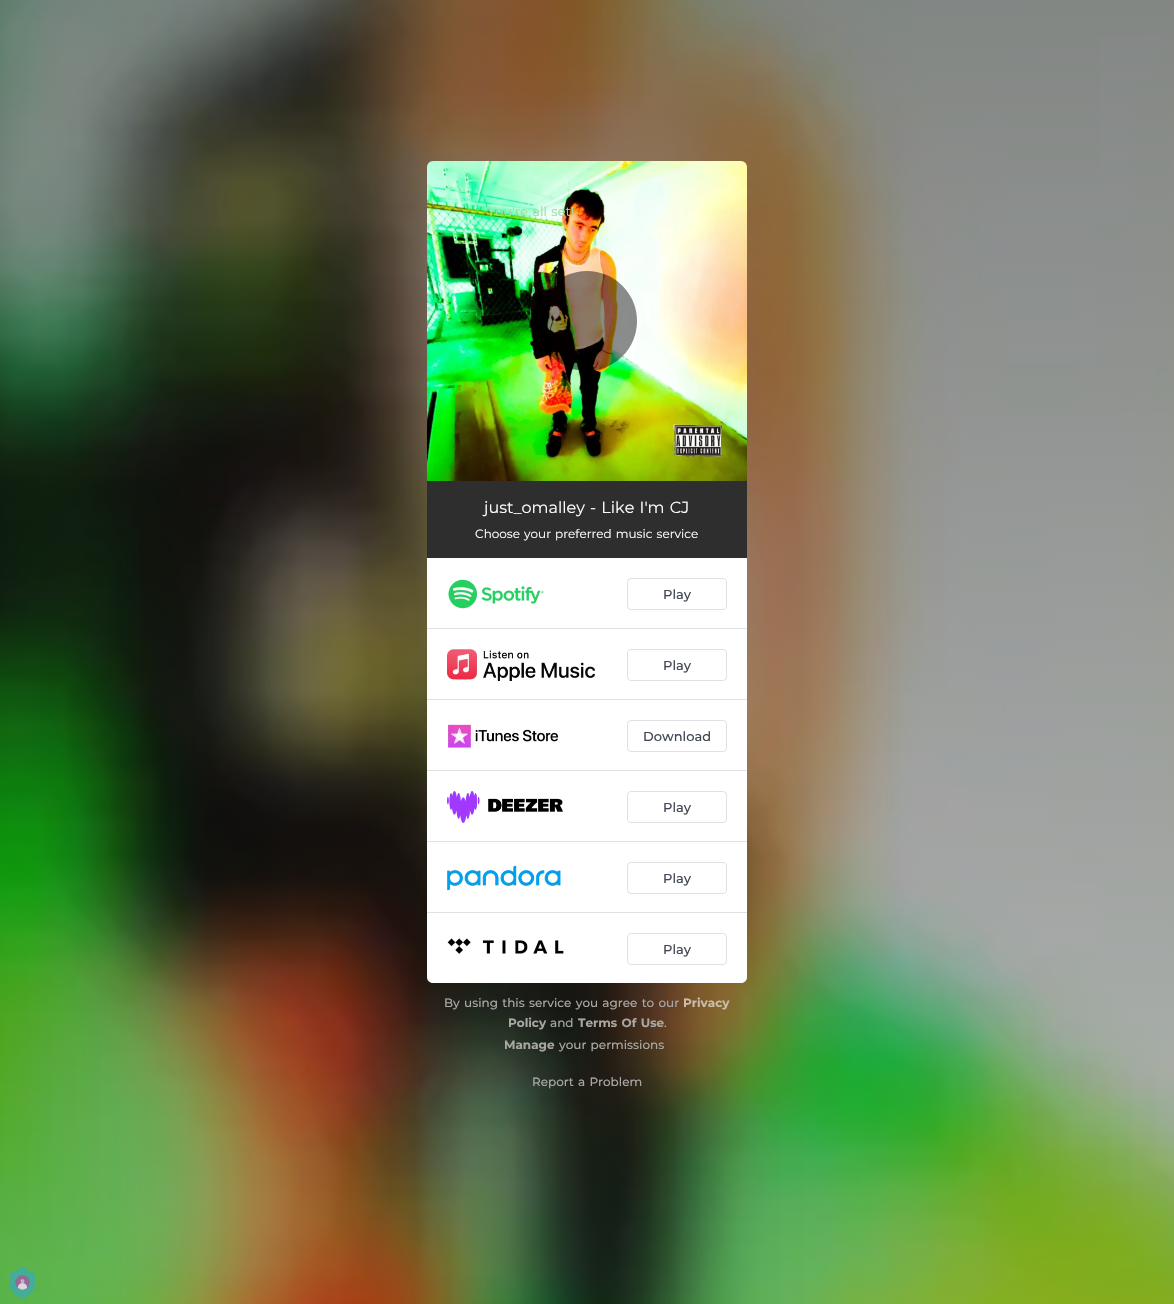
#include "include/core/SkBlurTypes.h"
#include "include/core/SkCanvas.h"
#include "include/core/SkData.h"
#include "include/core/SkFont.h"
#include "include/core/SkFontMgr.h"
#include "include/core/SkImage.h"
#include "include/core/SkMaskFilter.h"
#include "include/core/SkPaint.h"
#include "include/core/SkPathBuilder.h"
#include "include/core/SkTextBlob.h"
#include "include/effects/SkDashPathEffect.h"
#include "include/effects/SkGradientShader.h"
#include "include/utils/SkParsePath.h"

extern sk_sp<SkFontMgr> fontMgr;

static SkFont font(const char* family, int weight, float size, bool italic = false) {
    SkFontStyle style(weight, SkFontStyle::kNormal_Width,
        italic ? SkFontStyle::kItalic_Slant : SkFontStyle::kUpright_Slant);
    SkFont result(fontMgr->matchFamilyStyle(family, style), size);
    result.setSubpixel(true);
    return result;
}

static void drawLabel(SkCanvas* canvas, const char* s, float x, float y, const SkFont& font, SkColor color) {
    SkPaint ink(SkColor4f::FromColor(color));
    ink.setAntiAlias(true);
    canvas->drawString(s, x, y, font, ink);
}

static void drawTracked(SkCanvas* canvas, const char* s, float x, float y, const SkFont& font, const SkPaint& ink, float letter, float word) {
    std::vector<SkGlyphID> glyphs(font.countText(s, strlen(s), SkTextEncoding::kUTF8));
    std::vector<float> xs(glyphs.size());
    font.textToGlyphs(s, strlen(s), SkTextEncoding::kUTF8, glyphs);
    font.getXPos(glyphs, xs, x);
    float extra = 0;
    for (size_t i = 0; i < glyphs.size(); i++) {
        xs[i] += extra;
        extra += letter + word * (glyphs[i] == font.unicharToGlyph(' '));
    }
    canvas->drawTextBlob(SkTextBlob::MakeFromPosHGlyphs(glyphs, xs, y, font), 0, 0, ink);
}

static void fillRect(SkCanvas* canvas, float x, float y, float w, float h, SkColor color) {
    SkPaint ink(SkColor4f::FromColor(color));
    ink.setAntiAlias(true);
    canvas->drawRect(SkRect::MakeXYWH(x, y, w, h), ink);
}

static void drawPhoto(SkCanvas* canvas, const char* path, float x, float y, float w, float h) {
    auto image = SkImages::DeferredFromEncodedData(SkData::MakeFromFileName(path));
    canvas->drawImageRect(image, SkRect::MakeXYWH(x, y, w, h), SkSamplingOptions());
}

static SkPath parsePath(const char* data, bool evenOdd = false) {
    SkPath result = *SkParsePath::FromSVGString(data);
    if (evenOdd) result.setFillType(SkPathFillType::kEvenOdd);
    return result;
}

void draw(SkCanvas* canvas) {
    SkPaint paint;
    paint.setAntiAlias(true);
    canvas->clear(0xFFFFFFFF);
    drawPhoto(canvas, "assets/img1.png", 0, 0, 1174, 1304);
    drawPhoto(canvas, "assets/img2.png", 427, 161, 320, 320);
    paint.setColor(0x73000000);
    canvas->drawCircle(587, 321, 50, paint);
    SkFont font1 = font("Montserrat", 400, 13);
    paint.setColor(0xFF9EE0A6);
    drawTracked(canvas, "You're all set!", 487, 216, font1, paint, 0, 1);
    fillRect(canvas, 427, 481, 320, 77, 0xFF2E2E2E);
    SkFont font2 = font("Montserrat", 400, 16);
    paint.setColor(0xFFFFFFFF);
    drawTracked(canvas, "just_omalley - Like I'm CJ", 484, 513, font2, paint, 0, 1);
    SkFont font3 = font("Montserrat", 400, 12);
    drawTracked(canvas, "Choose your preferred music service", 475, 538, font3, paint, 0, 1);
    canvas->drawPath(parsePath("M427 558H747V977C747 980.5 744.5 983 741 983H433C429.5 983 427 980.5 427 977Z"), paint);
    fillRect(canvas, 427, 628, 320, 1, 0xFFE1E1E4);
    drawPhoto(canvas, "assets/img3.png", 448, 579, 96, 30);
    paint.setStroke(true);
    paint.setStrokeWidth(1);
    paint.setColor(0xFFE1E1E4);
    canvas->drawRoundRect(SkRect::MakeXYWH(627.5f, 578.5f, 99, 31), 3.5f, 3.5f, paint);
    SkFont font4 = font("Montserrat", 500, 13);
    drawLabel(canvas, "Play", 663, 599, font4, 0xFF414754);
    fillRect(canvas, 427, 699, 320, 1, 0xFFE1E1E4);
    drawPhoto(canvas, "assets/img4.png", 447, 649, 148, 32);
    canvas->drawRoundRect(SkRect::MakeXYWH(627.5f, 649.5f, 99, 31), 3.5f, 3.5f, paint);
    drawLabel(canvas, "Play", 663, 670, font4, 0xFF414754);
    fillRect(canvas, 427, 770, 320, 1, 0xFFE1E1E4);
    drawPhoto(canvas, "assets/img5.png", 448, 724, 111, 24);
    canvas->drawRoundRect(SkRect::MakeXYWH(627.5f, 720.5f, 99, 31), 3.5f, 3.5f, paint);
    drawLabel(canvas, "Download", 643, 741, font4, 0xFF414754);
    fillRect(canvas, 427, 841, 320, 1, 0xFFE1E1E4);
    drawPhoto(canvas, "assets/img6.png", 447, 791, 116, 32);
    canvas->drawRoundRect(SkRect::MakeXYWH(627.5f, 791.5f, 99, 31), 3.5f, 3.5f, paint);
    drawLabel(canvas, "Play", 663, 812, font4, 0xFF414754);
    fillRect(canvas, 427, 912, 320, 1, 0xFFE1E1E4);
    drawPhoto(canvas, "assets/img7.png", 447, 865, 115, 26);
    canvas->drawRoundRect(SkRect::MakeXYWH(627.5f, 862.5f, 99, 31), 3.5f, 3.5f, paint);
    drawLabel(canvas, "Play", 663, 883, font4, 0xFF414754);
    drawPhoto(canvas, "assets/img8.png", 447, 938, 117, 16);
    canvas->drawRoundRect(SkRect::MakeXYWH(627.5f, 933.5f, 99, 31), 3.5f, 3.5f, paint);
    drawLabel(canvas, "Play", 663, 954, font4, 0xFF414754);
    SkFont font5 = font("Montserrat", 500, 12);
    paint.setStroke(false);
    paint.setColor(0xFFA9A7A3);
    drawTracked(canvas, "By using this service you agree to our", 444, 1007, font5, paint, 0, 1);
    SkFont font6 = font("Montserrat", 700, 12);
    drawLabel(canvas, "Privacy", 683, 1007, font6, 0xFFCBBEAB);
    drawLabel(canvas, "Policy", 508, 1027, font6, 0xFFA9A7A3);
    drawLabel(canvas, "and", 550, 1027, font5, 0xFFA2A4A1);
    drawTracked(canvas, "Terms Of Use", 578, 1027, font6, paint, 0, 1);
    drawLabel(canvas, ".", 664, 1027, font5, 0xFFBFB2A7);
    drawLabel(canvas, "Manage", 504, 1049, font6, 0xFFA9A7A3);
    drawTracked(canvas, "your permissions", 559, 1049, font5, paint, 0, 1);
    drawTracked(canvas, "Report a Problem", 532, 1086, font5, paint, 0, 1);
    drawPhoto(canvas, "assets/img9.png", 10, 1266, 25, 33);
}
